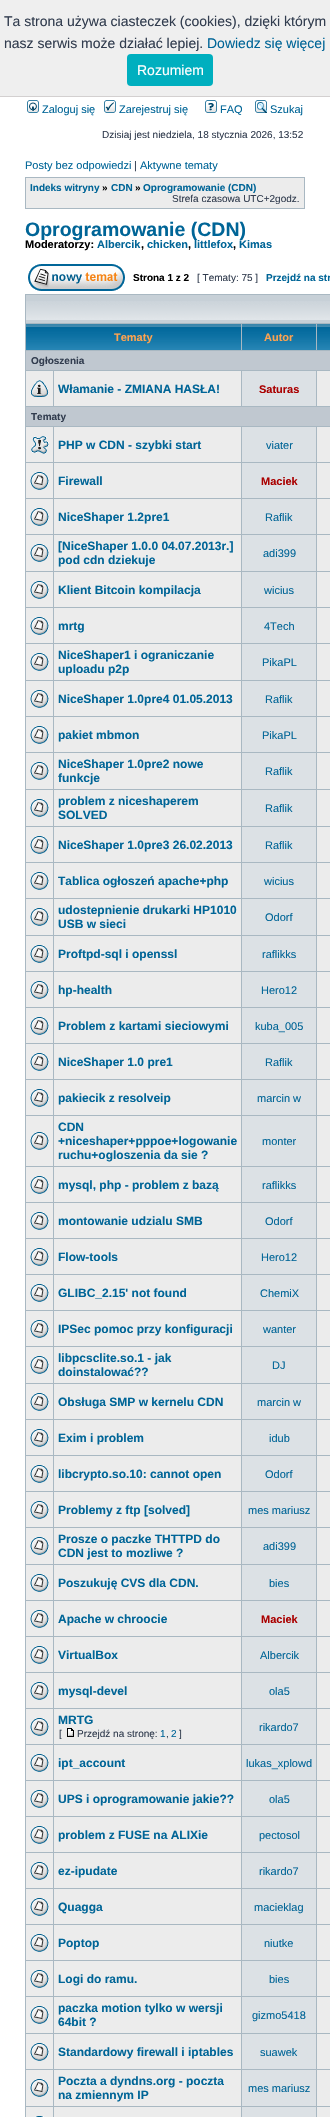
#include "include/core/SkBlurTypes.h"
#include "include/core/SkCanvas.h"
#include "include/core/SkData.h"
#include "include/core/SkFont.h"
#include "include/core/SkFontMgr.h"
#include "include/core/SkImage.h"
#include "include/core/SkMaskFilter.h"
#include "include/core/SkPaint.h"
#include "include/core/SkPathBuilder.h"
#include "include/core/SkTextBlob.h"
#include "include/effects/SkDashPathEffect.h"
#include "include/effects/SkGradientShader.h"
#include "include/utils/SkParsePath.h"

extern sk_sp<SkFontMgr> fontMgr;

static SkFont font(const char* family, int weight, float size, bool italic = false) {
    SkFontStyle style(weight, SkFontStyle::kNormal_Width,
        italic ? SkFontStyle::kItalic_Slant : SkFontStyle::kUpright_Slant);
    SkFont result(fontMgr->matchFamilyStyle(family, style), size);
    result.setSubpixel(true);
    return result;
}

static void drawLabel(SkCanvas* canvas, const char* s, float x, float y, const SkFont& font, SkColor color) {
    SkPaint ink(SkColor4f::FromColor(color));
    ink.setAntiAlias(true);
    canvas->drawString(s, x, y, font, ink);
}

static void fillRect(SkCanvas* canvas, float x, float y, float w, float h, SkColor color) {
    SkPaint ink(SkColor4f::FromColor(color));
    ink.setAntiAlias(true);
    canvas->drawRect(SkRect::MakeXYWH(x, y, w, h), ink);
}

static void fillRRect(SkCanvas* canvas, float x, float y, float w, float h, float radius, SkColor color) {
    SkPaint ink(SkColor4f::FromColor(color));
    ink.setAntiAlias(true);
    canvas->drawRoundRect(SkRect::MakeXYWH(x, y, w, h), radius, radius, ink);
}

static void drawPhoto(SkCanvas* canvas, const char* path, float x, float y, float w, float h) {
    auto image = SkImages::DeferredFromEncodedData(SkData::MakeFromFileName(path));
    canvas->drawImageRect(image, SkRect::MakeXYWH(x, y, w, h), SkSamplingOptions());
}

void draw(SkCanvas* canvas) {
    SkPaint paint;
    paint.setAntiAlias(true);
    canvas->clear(0xFFFFFFFF);
    fillRect(canvas, 0, 0, 330, 96, 0xFFEFEFEF);
    fillRect(canvas, 0, 96, 330, 1, 0xFFD3D0D0);
    SkFont font1 = font("Liberation Sans", 400, 14);
    drawLabel(canvas, "Ta strona używa ciasteczek (cookies), dzięki którym", 4, 26, font1, 0xFF323D4F);
    drawLabel(canvas, "nasz serwis może działać lepiej.", 4, 48, font1, 0xFF323D4F);
    drawLabel(canvas, "Dowiedz się więcej", 207, 48, font1, 0xFF006597);
    fillRRect(canvas, 127, 54, 86, 32, 4, 0xFF00AFBF);
    drawLabel(canvas, "Rozumiem", 137, 75, font1, 0xFFFFFFFF);
    drawPhoto(canvas, "assets/img1.png", 0, 97, 330, 1);
    drawPhoto(canvas, "assets/img2.png", 27, 100, 12, 13);
    SkFont font2 = font("Liberation Sans", 400, 11);
    drawLabel(canvas, "Zaloguj się", 42, 113, font2, 0xFF006597);
    drawPhoto(canvas, "assets/img3.png", 104, 100, 12, 13);
    drawLabel(canvas, "Zarejestruj się", 119, 113, font2, 0xFF006597);
    drawPhoto(canvas, "assets/img4.png", 205, 100, 12, 13);
    drawLabel(canvas, "FAQ", 220, 113, font2, 0xFF006597);
    drawPhoto(canvas, "assets/img5.png", 255, 100, 12, 13);
    drawLabel(canvas, "Szukaj", 270, 113, font2, 0xFF006597);
    SkFont font3 = font("Liberation Sans", 400, 10);
    drawLabel(canvas, "Dzisiaj jest niedziela, 18 stycznia 2026, 13:52", 102, 138, font3, 0xFF323D4F);
    drawLabel(canvas, "Posty bez odpowiedzi", 25, 169, font2, 0xFF006597);
    drawLabel(canvas, "|", 134, 169, font2, 0xFF323D4F);
    drawLabel(canvas, "Aktywne tematy", 140, 169, font2, 0xFF006597);
    fillRect(canvas, 25, 177, 280, 32, 0xFFA9B8C2);
    fillRect(canvas, 26, 178, 278, 30, 0xFFECECEC);
    SkFont font4 = font("Liberation Sans", 700, 10);
    drawLabel(canvas, "Indeks witryny", 30, 191, font4, 0xFF006597);
    drawLabel(canvas, "»", 102, 191, font4, 0xFF000000);
    drawLabel(canvas, "CDN", 111, 191, font4, 0xFF006597);
    drawLabel(canvas, "»", 135, 191, font4, 0xFF000000);
    drawLabel(canvas, "Oprogramowanie (CDN)", 143, 191, font4, 0xFF006597);
    drawLabel(canvas, "Strefa czasowa UTC+2godz.", 172, 202, font3, 0xFF323D4F);
    SkFont font5 = font("Liberation Sans", 700, 19.5f);
    drawLabel(canvas, "Oprogramowanie (CDN)", 25, 236, font5, 0xFF006597);
    SkFont font6 = font("Liberation Sans", 700, 11);
    drawLabel(canvas, "Moderatorzy:", 25, 248, font6, 0xFF000000);
    drawLabel(canvas, "Albercik", 97, 248, font6, 0xFF006597);
    drawLabel(canvas, ",", 141, 248, font6, 0xFF000000);
    drawLabel(canvas, "chicken", 147, 248, font6, 0xFF006597);
    drawLabel(canvas, ",", 188, 248, font6, 0xFF000000);
    drawLabel(canvas, "littlefox", 194, 248, font6, 0xFF006597);
    drawLabel(canvas, ",", 233, 248, font6, 0xFF000000);
    drawLabel(canvas, "Kimas", 239, 248, font6, 0xFF006597);
    drawPhoto(canvas, "assets/img6.png", 28, 264, 97, 27);
    drawLabel(canvas, "Strona 1 z 2", 133, 281, font4, 0xFF000000);
    drawLabel(canvas, "[ Tematy: 75 ]", 197, 281, font3, 0xFF323D4F);
    drawLabel(canvas, "Przejdź na str", 266, 281, font4, 0xFF006597);
    fillRect(canvas, 25, 294, 305, 1823, 0xFFA9B8C2);
    fillRect(canvas, 26, 295, 304, 28, 0xFFC7D0D7);
    drawPhoto(canvas, "assets/img7.png", 26, 301, 304, 19);
    drawPhoto(canvas, "assets/img8.png", 26, 324, 215, 26);
    drawLabel(canvas, "Tematy", 114, 341, font6, 0xFFFFA34F);
    drawPhoto(canvas, "assets/img9.png", 242, 324, 74, 26);
    drawLabel(canvas, "Autor", 264, 341, font6, 0xFFFFA34F);
    drawPhoto(canvas, "assets/img10.png", 317, 324, 13, 26);
    fillRect(canvas, 26, 351, 304, 19, 0xFFC0C8D0);
    drawLabel(canvas, "Ogłoszenia", 31, 364, font4, 0xFF323D4F);
    fillRect(canvas, 26, 371, 27, 35, 0xFFECECEC);
    drawPhoto(canvas, "assets/img11.png", 30, 380, 19, 17);
    fillRect(canvas, 54, 371, 187, 35, 0xFFECECEC);
    SkFont font7 = font("Liberation Sans", 700, 12);
    drawLabel(canvas, "Włamanie - ZMIANA HASŁA!", 58, 393, font7, 0xFF006597);
    fillRect(canvas, 242, 371, 74, 35, 0xFFDCE1E5);
    drawLabel(canvas, "Saturas", 259, 393, font6, 0xFFAA0000);
    fillRect(canvas, 317, 371, 13, 35, 0xFFECECEC);
    fillRect(canvas, 26, 407, 304, 19, 0xFFC0C8D0);
    drawLabel(canvas, "Tematy", 31, 420, font4, 0xFF323D4F);
    fillRect(canvas, 26, 427, 27, 35, 0xFFECECEC);
    drawPhoto(canvas, "assets/img12.png", 31, 436, 18, 18);
    fillRect(canvas, 54, 427, 187, 35, 0xFFECECEC);
    drawLabel(canvas, "PHP w CDN - szybki start", 58, 449, font7, 0xFF006597);
    fillRect(canvas, 242, 427, 74, 35, 0xFFDCE1E5);
    drawLabel(canvas, "viater", 266, 449, font2, 0xFF006597);
    fillRect(canvas, 317, 427, 13, 35, 0xFFECECEC);
    fillRect(canvas, 26, 463, 27, 35, 0xFFECECEC);
    drawPhoto(canvas, "assets/img13.png", 30, 472, 19, 18);
    fillRect(canvas, 54, 463, 187, 35, 0xFFECECEC);
    drawLabel(canvas, "Firewall", 58, 485, font7, 0xFF006597);
    fillRect(canvas, 242, 463, 74, 35, 0xFFDCE1E5);
    drawLabel(canvas, "Maciek", 261, 485, font6, 0xFFAA0000);
    fillRect(canvas, 317, 463, 13, 35, 0xFFECECEC);
    fillRect(canvas, 26, 499, 27, 35, 0xFFECECEC);
    drawPhoto(canvas, "assets/img13.png", 30, 508, 19, 18);
    fillRect(canvas, 54, 499, 187, 35, 0xFFECECEC);
    drawLabel(canvas, "NiceShaper 1.2pre1", 58, 521, font7, 0xFF006597);
    fillRect(canvas, 242, 499, 74, 35, 0xFFDCE1E5);
    drawLabel(canvas, "Raflik", 265, 521, font2, 0xFF006597);
    fillRect(canvas, 317, 499, 13, 35, 0xFFECECEC);
    fillRect(canvas, 26, 535, 27, 36, 0xFFECECEC);
    drawPhoto(canvas, "assets/img13.png", 30, 544, 19, 18);
    fillRect(canvas, 54, 535, 187, 36, 0xFFECECEC);
    drawLabel(canvas, "[NiceShaper 1.0.0 04.07.2013r.]", 58, 550, font7, 0xFF006597);
    drawLabel(canvas, "pod cdn dziekuje", 58, 564, font7, 0xFF006597);
    fillRect(canvas, 242, 535, 74, 36, 0xFFDCE1E5);
    drawLabel(canvas, "adi399", 263, 557, font2, 0xFF006597);
    fillRect(canvas, 317, 535, 13, 36, 0xFFECECEC);
    fillRect(canvas, 26, 572, 27, 35, 0xFFECECEC);
    drawPhoto(canvas, "assets/img13.png", 30, 581, 19, 18);
    fillRect(canvas, 54, 572, 187, 35, 0xFFECECEC);
    drawLabel(canvas, "Klient Bitcoin kompilacja", 58, 594, font7, 0xFF006597);
    fillRect(canvas, 242, 572, 74, 35, 0xFFDCE1E5);
    drawLabel(canvas, "wicius", 264, 594, font2, 0xFF006597);
    fillRect(canvas, 317, 572, 13, 35, 0xFFECECEC);
    fillRect(canvas, 26, 608, 27, 35, 0xFFECECEC);
    drawPhoto(canvas, "assets/img13.png", 30, 617, 19, 18);
    fillRect(canvas, 54, 608, 187, 35, 0xFFECECEC);
    drawLabel(canvas, "mrtg", 58, 630, font7, 0xFF006597);
    fillRect(canvas, 242, 608, 74, 35, 0xFFDCE1E5);
    drawLabel(canvas, "4Tech", 264, 630, font2, 0xFF006597);
    fillRect(canvas, 317, 608, 13, 35, 0xFFECECEC);
    fillRect(canvas, 26, 644, 27, 36, 0xFFECECEC);
    drawPhoto(canvas, "assets/img13.png", 30, 653, 19, 18);
    fillRect(canvas, 54, 644, 187, 36, 0xFFECECEC);
    drawLabel(canvas, "NiceShaper1 i ograniczanie", 58, 659, font7, 0xFF006597);
    drawLabel(canvas, "uploadu p2p", 58, 673, font7, 0xFF006597);
    fillRect(canvas, 242, 644, 74, 36, 0xFFDCE1E5);
    drawLabel(canvas, "PikaPL", 262, 666, font2, 0xFF006597);
    fillRect(canvas, 317, 644, 13, 36, 0xFFECECEC);
    fillRect(canvas, 26, 681, 27, 35, 0xFFECECEC);
    drawPhoto(canvas, "assets/img13.png", 30, 690, 19, 18);
    fillRect(canvas, 54, 681, 187, 35, 0xFFECECEC);
    drawLabel(canvas, "NiceShaper 1.0pre4 01.05.2013", 58, 703, font7, 0xFF006597);
    fillRect(canvas, 242, 681, 74, 35, 0xFFDCE1E5);
    drawLabel(canvas, "Raflik", 265, 703, font2, 0xFF006597);
    fillRect(canvas, 317, 681, 13, 35, 0xFFECECEC);
    fillRect(canvas, 26, 717, 27, 35, 0xFFECECEC);
    drawPhoto(canvas, "assets/img13.png", 30, 726, 19, 18);
    fillRect(canvas, 54, 717, 187, 35, 0xFFECECEC);
    drawLabel(canvas, "pakiet mbmon", 58, 739, font7, 0xFF006597);
    fillRect(canvas, 242, 717, 74, 35, 0xFFDCE1E5);
    drawLabel(canvas, "PikaPL", 262, 739, font2, 0xFF006597);
    fillRect(canvas, 317, 717, 13, 35, 0xFFECECEC);
    fillRect(canvas, 26, 753, 27, 36, 0xFFECECEC);
    drawPhoto(canvas, "assets/img13.png", 30, 762, 19, 18);
    fillRect(canvas, 54, 753, 187, 36, 0xFFECECEC);
    drawLabel(canvas, "NiceShaper 1.0pre2 nowe", 58, 768, font7, 0xFF006597);
    drawLabel(canvas, "funkcje", 58, 782, font7, 0xFF006597);
    fillRect(canvas, 242, 753, 74, 36, 0xFFDCE1E5);
    drawLabel(canvas, "Raflik", 265, 775, font2, 0xFF006597);
    fillRect(canvas, 317, 753, 13, 36, 0xFFECECEC);
    fillRect(canvas, 26, 790, 27, 36, 0xFFECECEC);
    drawPhoto(canvas, "assets/img13.png", 30, 799, 19, 18);
    fillRect(canvas, 54, 790, 187, 36, 0xFFECECEC);
    drawLabel(canvas, "problem z niceshaperem", 58, 805, font7, 0xFF006597);
    drawLabel(canvas, "SOLVED", 58, 819, font7, 0xFF006597);
    fillRect(canvas, 242, 790, 74, 36, 0xFFDCE1E5);
    drawLabel(canvas, "Raflik", 265, 812, font2, 0xFF006597);
    fillRect(canvas, 317, 790, 13, 36, 0xFFECECEC);
    fillRect(canvas, 26, 827, 27, 35, 0xFFECECEC);
    drawPhoto(canvas, "assets/img13.png", 30, 836, 19, 18);
    fillRect(canvas, 54, 827, 187, 35, 0xFFECECEC);
    drawLabel(canvas, "NiceShaper 1.0pre3 26.02.2013", 58, 849, font7, 0xFF006597);
    fillRect(canvas, 242, 827, 74, 35, 0xFFDCE1E5);
    drawLabel(canvas, "Raflik", 265, 849, font2, 0xFF006597);
    fillRect(canvas, 317, 827, 13, 35, 0xFFECECEC);
    fillRect(canvas, 26, 863, 27, 35, 0xFFECECEC);
    drawPhoto(canvas, "assets/img13.png", 30, 872, 19, 18);
    fillRect(canvas, 54, 863, 187, 35, 0xFFECECEC);
    drawLabel(canvas, "Tablica ogłoszeń apache+php", 58, 885, font7, 0xFF006597);
    fillRect(canvas, 242, 863, 74, 35, 0xFFDCE1E5);
    drawLabel(canvas, "wicius", 264, 885, font2, 0xFF006597);
    fillRect(canvas, 317, 863, 13, 35, 0xFFECECEC);
    fillRect(canvas, 26, 899, 27, 36, 0xFFECECEC);
    drawPhoto(canvas, "assets/img13.png", 30, 908, 19, 18);
    fillRect(canvas, 54, 899, 187, 36, 0xFFECECEC);
    drawLabel(canvas, "udostepnienie drukarki HP1010", 58, 914, font7, 0xFF006597);
    drawLabel(canvas, "USB w sieci", 58, 928, font7, 0xFF006597);
    fillRect(canvas, 242, 899, 74, 36, 0xFFDCE1E5);
    drawLabel(canvas, "Odorf", 265, 921, font2, 0xFF006597);
    fillRect(canvas, 317, 899, 13, 36, 0xFFECECEC);
    fillRect(canvas, 26, 936, 27, 35, 0xFFECECEC);
    drawPhoto(canvas, "assets/img13.png", 30, 945, 19, 18);
    fillRect(canvas, 54, 936, 187, 35, 0xFFECECEC);
    drawLabel(canvas, "Proftpd-sql i openssl", 58, 958, font7, 0xFF006597);
    fillRect(canvas, 242, 936, 74, 35, 0xFFDCE1E5);
    drawLabel(canvas, "raflikks", 262, 958, font2, 0xFF006597);
    fillRect(canvas, 317, 936, 13, 35, 0xFFECECEC);
    fillRect(canvas, 26, 972, 27, 35, 0xFFECECEC);
    drawPhoto(canvas, "assets/img13.png", 30, 981, 19, 18);
    fillRect(canvas, 54, 972, 187, 35, 0xFFECECEC);
    drawLabel(canvas, "hp-health", 58, 994, font7, 0xFF006597);
    fillRect(canvas, 242, 972, 74, 35, 0xFFDCE1E5);
    drawLabel(canvas, "Hero12", 261, 994, font2, 0xFF006597);
    fillRect(canvas, 317, 972, 13, 35, 0xFFECECEC);
    fillRect(canvas, 26, 1008, 27, 35, 0xFFECECEC);
    drawPhoto(canvas, "assets/img13.png", 30, 1017, 19, 18);
    fillRect(canvas, 54, 1008, 187, 35, 0xFFECECEC);
    drawLabel(canvas, "Problem z kartami sieciowymi", 58, 1030, font7, 0xFF006597);
    fillRect(canvas, 242, 1008, 74, 35, 0xFFDCE1E5);
    drawLabel(canvas, "kuba_005", 255, 1030, font2, 0xFF006597);
    fillRect(canvas, 317, 1008, 13, 35, 0xFFECECEC);
    fillRect(canvas, 26, 1044, 27, 35, 0xFFECECEC);
    drawPhoto(canvas, "assets/img13.png", 30, 1053, 19, 18);
    fillRect(canvas, 54, 1044, 187, 35, 0xFFECECEC);
    drawLabel(canvas, "NiceShaper 1.0 pre1", 58, 1066, font7, 0xFF006597);
    fillRect(canvas, 242, 1044, 74, 35, 0xFFDCE1E5);
    drawLabel(canvas, "Raflik", 265, 1066, font2, 0xFF006597);
    fillRect(canvas, 317, 1044, 13, 35, 0xFFECECEC);
    fillRect(canvas, 26, 1080, 27, 35, 0xFFECECEC);
    drawPhoto(canvas, "assets/img13.png", 30, 1089, 19, 18);
    fillRect(canvas, 54, 1080, 187, 35, 0xFFECECEC);
    drawLabel(canvas, "pakiecik z resolveip", 58, 1102, font7, 0xFF006597);
    fillRect(canvas, 242, 1080, 74, 35, 0xFFDCE1E5);
    drawLabel(canvas, "marcin w", 257, 1102, font2, 0xFF006597);
    fillRect(canvas, 317, 1080, 13, 35, 0xFFECECEC);
    fillRect(canvas, 26, 1116, 27, 50, 0xFFECECEC);
    drawPhoto(canvas, "assets/img13.png", 30, 1132, 19, 18);
    fillRect(canvas, 54, 1116, 187, 50, 0xFFECECEC);
    drawLabel(canvas, "CDN", 58, 1131, font7, 0xFF006597);
    drawLabel(canvas, "+niceshaper+pppoe+logowanie", 58, 1145, font7, 0xFF006597);
    drawLabel(canvas, "ruchu+ogloszenia da sie ?", 58, 1159, font7, 0xFF006597);
    fillRect(canvas, 242, 1116, 74, 50, 0xFFDCE1E5);
    drawLabel(canvas, "monter", 262, 1145, font2, 0xFF006597);
    fillRect(canvas, 317, 1116, 13, 50, 0xFFECECEC);
    fillRect(canvas, 26, 1167, 27, 35, 0xFFECECEC);
    drawPhoto(canvas, "assets/img13.png", 30, 1176, 19, 18);
    fillRect(canvas, 54, 1167, 187, 35, 0xFFECECEC);
    drawLabel(canvas, "mysql, php - problem z bazą", 58, 1189, font7, 0xFF006597);
    fillRect(canvas, 242, 1167, 74, 35, 0xFFDCE1E5);
    drawLabel(canvas, "raflikks", 262, 1189, font2, 0xFF006597);
    fillRect(canvas, 317, 1167, 13, 35, 0xFFECECEC);
    fillRect(canvas, 26, 1203, 27, 35, 0xFFECECEC);
    drawPhoto(canvas, "assets/img13.png", 30, 1212, 19, 18);
    fillRect(canvas, 54, 1203, 187, 35, 0xFFECECEC);
    drawLabel(canvas, "montowanie udzialu SMB", 58, 1225, font7, 0xFF006597);
    fillRect(canvas, 242, 1203, 74, 35, 0xFFDCE1E5);
    drawLabel(canvas, "Odorf", 265, 1225, font2, 0xFF006597);
    fillRect(canvas, 317, 1203, 13, 35, 0xFFECECEC);
    fillRect(canvas, 26, 1239, 27, 35, 0xFFECECEC);
    drawPhoto(canvas, "assets/img13.png", 30, 1248, 19, 18);
    fillRect(canvas, 54, 1239, 187, 35, 0xFFECECEC);
    drawLabel(canvas, "Flow-tools", 58, 1261, font7, 0xFF006597);
    fillRect(canvas, 242, 1239, 74, 35, 0xFFDCE1E5);
    drawLabel(canvas, "Hero12", 261, 1261, font2, 0xFF006597);
    fillRect(canvas, 317, 1239, 13, 35, 0xFFECECEC);
    fillRect(canvas, 26, 1275, 27, 35, 0xFFECECEC);
    drawPhoto(canvas, "assets/img13.png", 30, 1284, 19, 18);
    fillRect(canvas, 54, 1275, 187, 35, 0xFFECECEC);
    drawLabel(canvas, "GLIBC_2.15' not found", 58, 1297, font7, 0xFF006597);
    fillRect(canvas, 242, 1275, 74, 35, 0xFFDCE1E5);
    drawLabel(canvas, "ChemiX", 260, 1297, font2, 0xFF006597);
    fillRect(canvas, 317, 1275, 13, 35, 0xFFECECEC);
    fillRect(canvas, 26, 1311, 27, 35, 0xFFECECEC);
    drawPhoto(canvas, "assets/img13.png", 30, 1320, 19, 18);
    fillRect(canvas, 54, 1311, 187, 35, 0xFFECECEC);
    drawLabel(canvas, "IPSec pomoc przy konfiguracji", 58, 1333, font7, 0xFF006597);
    fillRect(canvas, 242, 1311, 74, 35, 0xFFDCE1E5);
    drawLabel(canvas, "wanter", 263, 1333, font2, 0xFF006597);
    fillRect(canvas, 317, 1311, 13, 35, 0xFFECECEC);
    fillRect(canvas, 26, 1347, 27, 36, 0xFFECECEC);
    drawPhoto(canvas, "assets/img13.png", 30, 1356, 19, 18);
    fillRect(canvas, 54, 1347, 187, 36, 0xFFECECEC);
    drawLabel(canvas, "libpcsclite.so.1 - jak", 58, 1362, font7, 0xFF006597);
    drawLabel(canvas, "doinstalować?\077", 58, 1376, font7, 0xFF006597);
    fillRect(canvas, 242, 1347, 74, 36, 0xFFDCE1E5);
    drawLabel(canvas, "DJ", 272, 1369, font2, 0xFF006597);
    fillRect(canvas, 317, 1347, 13, 36, 0xFFECECEC);
    fillRect(canvas, 26, 1384, 27, 35, 0xFFECECEC);
    drawPhoto(canvas, "assets/img13.png", 30, 1393, 19, 18);
    fillRect(canvas, 54, 1384, 187, 35, 0xFFECECEC);
    drawLabel(canvas, "Obsługa SMP w kernelu CDN", 58, 1406, font7, 0xFF006597);
    fillRect(canvas, 242, 1384, 74, 35, 0xFFDCE1E5);
    drawLabel(canvas, "marcin w", 257, 1406, font2, 0xFF006597);
    fillRect(canvas, 317, 1384, 13, 35, 0xFFECECEC);
    fillRect(canvas, 26, 1420, 27, 35, 0xFFECECEC);
    drawPhoto(canvas, "assets/img13.png", 30, 1429, 19, 18);
    fillRect(canvas, 54, 1420, 187, 35, 0xFFECECEC);
    drawLabel(canvas, "Exim i problem", 58, 1442, font7, 0xFF006597);
    fillRect(canvas, 242, 1420, 74, 35, 0xFFDCE1E5);
    drawLabel(canvas, "idub", 269, 1442, font2, 0xFF006597);
    fillRect(canvas, 317, 1420, 13, 35, 0xFFECECEC);
    fillRect(canvas, 26, 1456, 27, 35, 0xFFECECEC);
    drawPhoto(canvas, "assets/img13.png", 30, 1465, 19, 18);
    fillRect(canvas, 54, 1456, 187, 35, 0xFFECECEC);
    drawLabel(canvas, "libcrypto.so.10: cannot open", 58, 1478, font7, 0xFF006597);
    fillRect(canvas, 242, 1456, 74, 35, 0xFFDCE1E5);
    drawLabel(canvas, "Odorf", 265, 1478, font2, 0xFF006597);
    fillRect(canvas, 317, 1456, 13, 35, 0xFFECECEC);
    fillRect(canvas, 26, 1492, 27, 35, 0xFFECECEC);
    drawPhoto(canvas, "assets/img13.png", 30, 1501, 19, 18);
    fillRect(canvas, 54, 1492, 187, 35, 0xFFECECEC);
    drawLabel(canvas, "Problemy z ftp [solved]", 58, 1514, font7, 0xFF006597);
    fillRect(canvas, 242, 1492, 74, 35, 0xFFDCE1E5);
    drawLabel(canvas, "mes mariusz", 248, 1514, font2, 0xFF006597);
    fillRect(canvas, 317, 1492, 13, 35, 0xFFECECEC);
    fillRect(canvas, 26, 1528, 27, 36, 0xFFECECEC);
    drawPhoto(canvas, "assets/img13.png", 30, 1537, 19, 18);
    fillRect(canvas, 54, 1528, 187, 36, 0xFFECECEC);
    drawLabel(canvas, "Prosze o paczke THTTPD do", 58, 1543, font7, 0xFF006597);
    drawLabel(canvas, "CDN jest to mozliwe ?", 58, 1557, font7, 0xFF006597);
    fillRect(canvas, 242, 1528, 74, 36, 0xFFDCE1E5);
    drawLabel(canvas, "adi399", 263, 1550, font2, 0xFF006597);
    fillRect(canvas, 317, 1528, 13, 36, 0xFFECECEC);
    fillRect(canvas, 26, 1565, 27, 35, 0xFFECECEC);
    drawPhoto(canvas, "assets/img13.png", 30, 1574, 19, 18);
    fillRect(canvas, 54, 1565, 187, 35, 0xFFECECEC);
    drawLabel(canvas, "Poszukuję CVS dla CDN.", 58, 1587, font7, 0xFF006597);
    fillRect(canvas, 242, 1565, 74, 35, 0xFFDCE1E5);
    drawLabel(canvas, "bies", 269, 1587, font2, 0xFF006597);
    fillRect(canvas, 317, 1565, 13, 35, 0xFFECECEC);
    fillRect(canvas, 26, 1601, 27, 35, 0xFFECECEC);
    drawPhoto(canvas, "assets/img13.png", 30, 1610, 19, 18);
    fillRect(canvas, 54, 1601, 187, 35, 0xFFECECEC);
    drawLabel(canvas, "Apache w chroocie", 58, 1623, font7, 0xFF006597);
    fillRect(canvas, 242, 1601, 74, 35, 0xFFDCE1E5);
    drawLabel(canvas, "Maciek", 261, 1623, font6, 0xFFAA0000);
    fillRect(canvas, 317, 1601, 13, 35, 0xFFECECEC);
    fillRect(canvas, 26, 1637, 27, 35, 0xFFECECEC);
    drawPhoto(canvas, "assets/img13.png", 30, 1646, 19, 18);
    fillRect(canvas, 54, 1637, 187, 35, 0xFFECECEC);
    drawLabel(canvas, "VirtualBox", 58, 1659, font7, 0xFF006597);
    fillRect(canvas, 242, 1637, 74, 35, 0xFFDCE1E5);
    drawLabel(canvas, "Albercik", 260, 1659, font2, 0xFF006597);
    fillRect(canvas, 317, 1637, 13, 35, 0xFFECECEC);
    fillRect(canvas, 26, 1673, 27, 35, 0xFFECECEC);
    drawPhoto(canvas, "assets/img13.png", 30, 1682, 19, 18);
    fillRect(canvas, 54, 1673, 187, 35, 0xFFECECEC);
    drawLabel(canvas, "mysql-devel", 58, 1695, font7, 0xFF006597);
    fillRect(canvas, 242, 1673, 74, 35, 0xFFDCE1E5);
    drawLabel(canvas, "ola5", 269, 1695, font2, 0xFF006597);
    fillRect(canvas, 317, 1673, 13, 35, 0xFFECECEC);
    fillRect(canvas, 26, 1709, 27, 35, 0xFFECECEC);
    drawPhoto(canvas, "assets/img13.png", 30, 1718, 19, 18);
    fillRect(canvas, 54, 1709, 187, 35, 0xFFECECEC);
    drawLabel(canvas, "MRTG", 58, 1724, font7, 0xFF006597);
    drawLabel(canvas, "[", 59, 1737, font3, 0xFF323D4F);
    drawPhoto(canvas, "assets/img14.png", 67, 1728, 7, 9);
    drawLabel(canvas, "Przejdź na stronę:", 77, 1737, font3, 0xFF323D4F);
    drawLabel(canvas, "1", 160, 1737, font3, 0xFF006597);
    drawLabel(canvas, ",", 166, 1737, font3, 0xFF323D4F);
    drawLabel(canvas, "2", 171, 1737, font3, 0xFF006597);
    drawLabel(canvas, "]", 179, 1737, font3, 0xFF323D4F);
    fillRect(canvas, 242, 1709, 74, 35, 0xFFDCE1E5);
    drawLabel(canvas, "rikardo7", 259, 1731, font2, 0xFF006597);
    fillRect(canvas, 317, 1709, 13, 35, 0xFFECECEC);
    fillRect(canvas, 26, 1745, 27, 35, 0xFFECECEC);
    drawPhoto(canvas, "assets/img13.png", 30, 1754, 19, 18);
    fillRect(canvas, 54, 1745, 187, 35, 0xFFECECEC);
    drawLabel(canvas, "ipt_account", 58, 1767, font7, 0xFF006597);
    fillRect(canvas, 242, 1745, 74, 35, 0xFFDCE1E5);
    drawLabel(canvas, "lukas_xplowd", 246, 1767, font2, 0xFF006597);
    fillRect(canvas, 317, 1745, 13, 35, 0xFFECECEC);
    fillRect(canvas, 26, 1781, 27, 35, 0xFFECECEC);
    drawPhoto(canvas, "assets/img13.png", 30, 1790, 19, 18);
    fillRect(canvas, 54, 1781, 187, 35, 0xFFECECEC);
    drawLabel(canvas, "UPS i oprogramowanie jakie?\077", 58, 1803, font7, 0xFF006597);
    fillRect(canvas, 242, 1781, 74, 35, 0xFFDCE1E5);
    drawLabel(canvas, "ola5", 269, 1803, font2, 0xFF006597);
    fillRect(canvas, 317, 1781, 13, 35, 0xFFECECEC);
    fillRect(canvas, 26, 1817, 27, 35, 0xFFECECEC);
    drawPhoto(canvas, "assets/img13.png", 30, 1826, 19, 18);
    fillRect(canvas, 54, 1817, 187, 35, 0xFFECECEC);
    drawLabel(canvas, "problem z FUSE na ALIXie", 58, 1839, font7, 0xFF006597);
    fillRect(canvas, 242, 1817, 74, 35, 0xFFDCE1E5);
    drawLabel(canvas, "pectosol", 259, 1839, font2, 0xFF006597);
    fillRect(canvas, 317, 1817, 13, 35, 0xFFECECEC);
    fillRect(canvas, 26, 1853, 27, 35, 0xFFECECEC);
    drawPhoto(canvas, "assets/img13.png", 30, 1862, 19, 18);
    fillRect(canvas, 54, 1853, 187, 35, 0xFFECECEC);
    drawLabel(canvas, "ez-ipudate", 58, 1875, font7, 0xFF006597);
    fillRect(canvas, 242, 1853, 74, 35, 0xFFDCE1E5);
    drawLabel(canvas, "rikardo7", 259, 1875, font2, 0xFF006597);
    fillRect(canvas, 317, 1853, 13, 35, 0xFFECECEC);
    fillRect(canvas, 26, 1889, 27, 35, 0xFFECECEC);
    drawPhoto(canvas, "assets/img13.png", 30, 1898, 19, 18);
    fillRect(canvas, 54, 1889, 187, 35, 0xFFECECEC);
    drawLabel(canvas, "Quagga", 58, 1911, font7, 0xFF006597);
    fillRect(canvas, 242, 1889, 74, 35, 0xFFDCE1E5);
    drawLabel(canvas, "macieklag", 254, 1911, font2, 0xFF006597);
    fillRect(canvas, 317, 1889, 13, 35, 0xFFECECEC);
    fillRect(canvas, 26, 1925, 27, 35, 0xFFECECEC);
    drawPhoto(canvas, "assets/img13.png", 30, 1934, 19, 18);
    fillRect(canvas, 54, 1925, 187, 35, 0xFFECECEC);
    drawLabel(canvas, "Poptop", 58, 1947, font7, 0xFF006597);
    fillRect(canvas, 242, 1925, 74, 35, 0xFFDCE1E5);
    drawLabel(canvas, "niutke", 264, 1947, font2, 0xFF006597);
    fillRect(canvas, 317, 1925, 13, 35, 0xFFECECEC);
    fillRect(canvas, 26, 1961, 27, 35, 0xFFECECEC);
    drawPhoto(canvas, "assets/img13.png", 30, 1970, 19, 18);
    fillRect(canvas, 54, 1961, 187, 35, 0xFFECECEC);
    drawLabel(canvas, "Logi do ramu.", 58, 1983, font7, 0xFF006597);
    fillRect(canvas, 242, 1961, 74, 35, 0xFFDCE1E5);
    drawLabel(canvas, "bies", 269, 1983, font2, 0xFF006597);
    fillRect(canvas, 317, 1961, 13, 35, 0xFFECECEC);
    fillRect(canvas, 26, 1997, 27, 36, 0xFFECECEC);
    drawPhoto(canvas, "assets/img13.png", 30, 2006, 19, 18);
    fillRect(canvas, 54, 1997, 187, 36, 0xFFECECEC);
    drawLabel(canvas, "paczka motion tylko w wersji", 58, 2012, font7, 0xFF006597);
    drawLabel(canvas, "64bit ?", 58, 2026, font7, 0xFF006597);
    fillRect(canvas, 242, 1997, 74, 36, 0xFFDCE1E5);
    drawLabel(canvas, "gizmo5418", 252, 2019, font2, 0xFF006597);
    fillRect(canvas, 317, 1997, 13, 36, 0xFFECECEC);
    fillRect(canvas, 26, 2034, 27, 35, 0xFFECECEC);
    drawPhoto(canvas, "assets/img13.png", 30, 2043, 19, 18);
    fillRect(canvas, 54, 2034, 187, 35, 0xFFECECEC);
    drawLabel(canvas, "Standardowy firewall i iptables", 58, 2056, font7, 0xFF006597);
    fillRect(canvas, 242, 2034, 74, 35, 0xFFDCE1E5);
    drawLabel(canvas, "suawek", 260, 2056, font2, 0xFF006597);
    fillRect(canvas, 317, 2034, 13, 35, 0xFFECECEC);
    fillRect(canvas, 26, 2070, 27, 36, 0xFFECECEC);
    drawPhoto(canvas, "assets/img13.png", 30, 2079, 19, 18);
    fillRect(canvas, 54, 2070, 187, 36, 0xFFECECEC);
    drawLabel(canvas, "Poczta a dyndns.org - poczta", 58, 2085, font7, 0xFF006597);
    drawLabel(canvas, "na zmiennym IP", 58, 2099, font7, 0xFF006597);
    fillRect(canvas, 242, 2070, 74, 36, 0xFFDCE1E5);
    drawLabel(canvas, "mes mariusz", 248, 2092, font2, 0xFF006597);
    fillRect(canvas, 317, 2070, 13, 36, 0xFFECECEC);
    fillRect(canvas, 26, 2107, 27, 10, 0xFFECECEC);
    drawPhoto(canvas, "assets/img15.png", 35, 2116, 9, 1);
    fillRect(canvas, 54, 2107, 187, 10, 0xFFECECEC);
    fillRect(canvas, 242, 2107, 74, 10, 0xFFDCE1E5);
    fillRect(canvas, 317, 2107, 13, 10, 0xFFECECEC);
}
